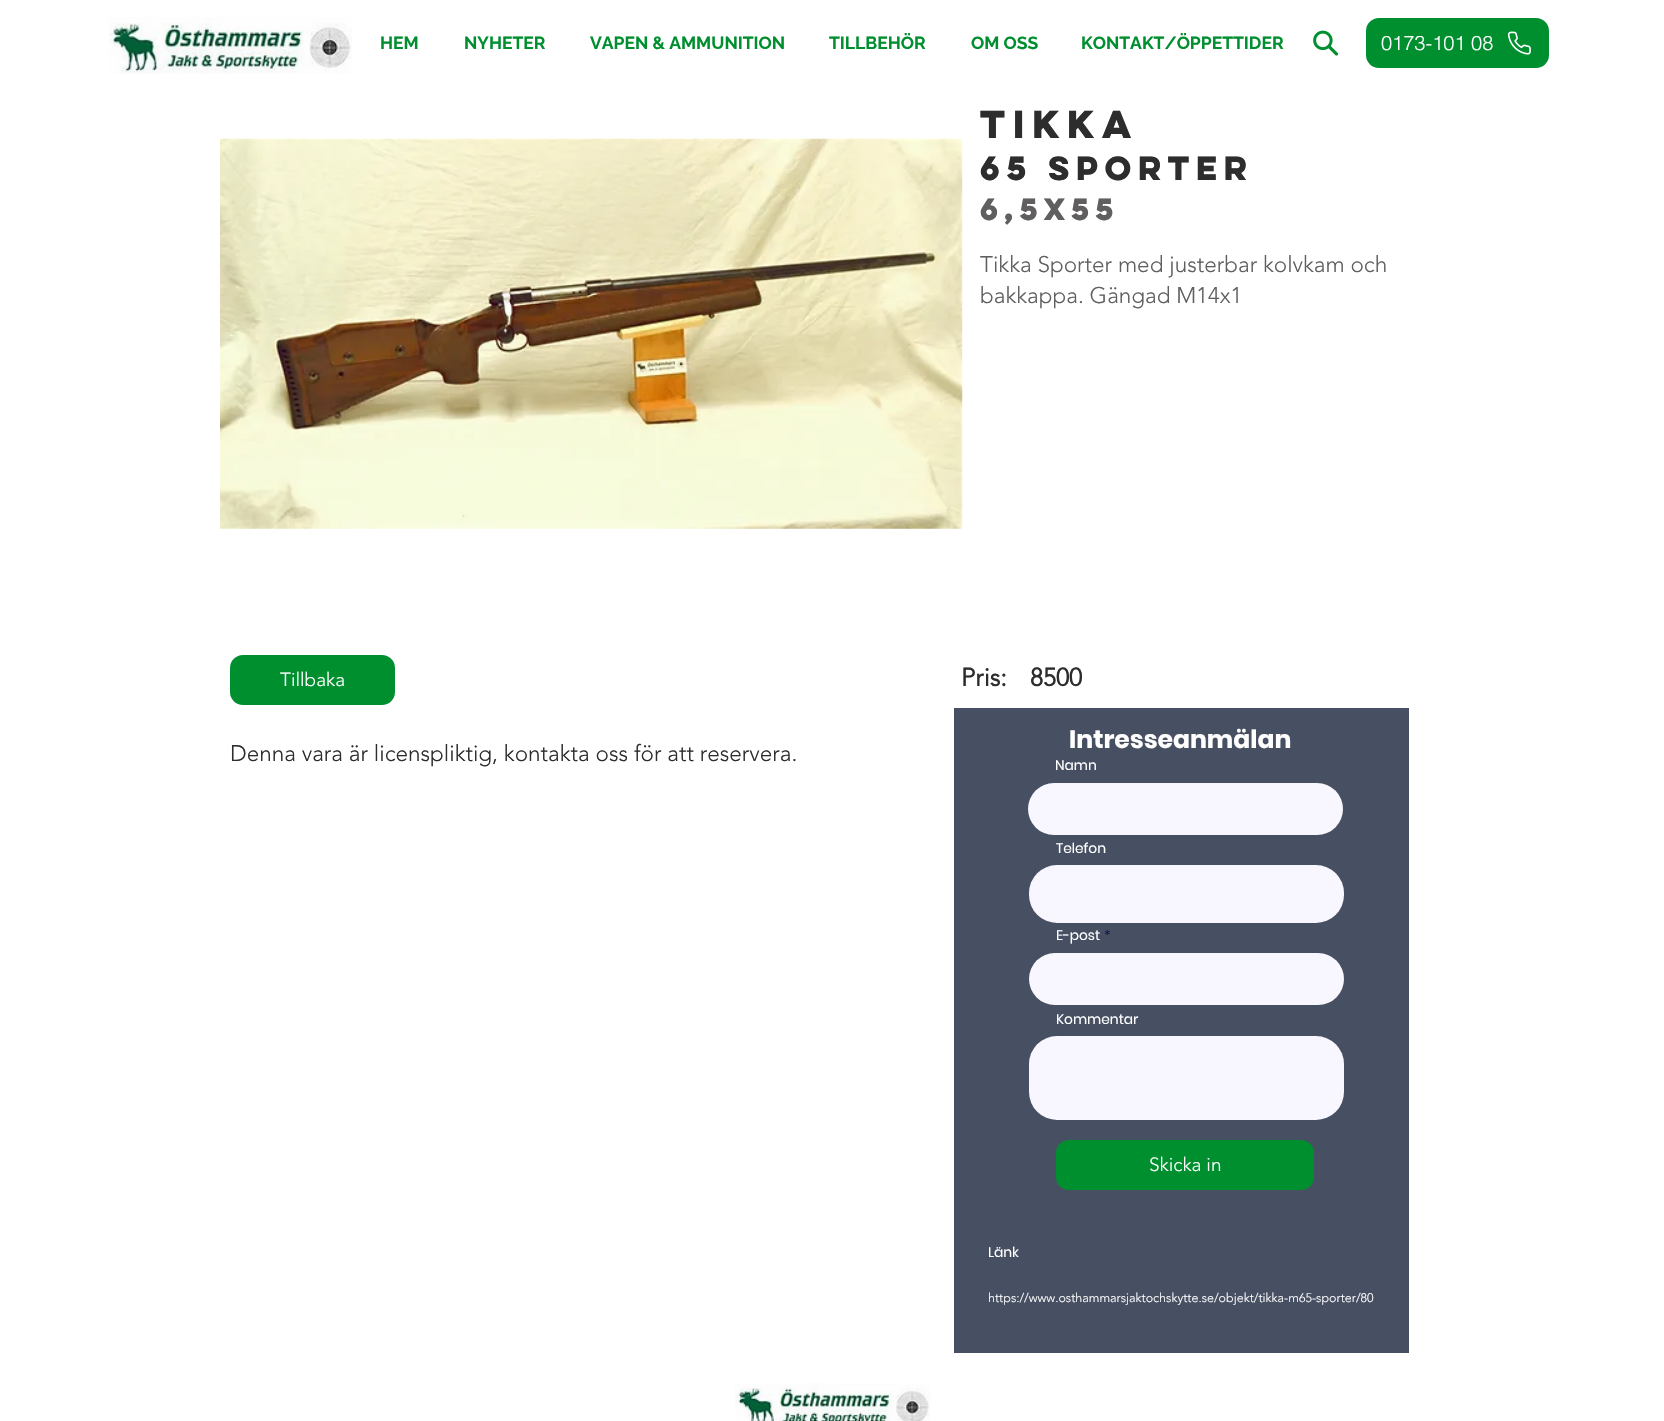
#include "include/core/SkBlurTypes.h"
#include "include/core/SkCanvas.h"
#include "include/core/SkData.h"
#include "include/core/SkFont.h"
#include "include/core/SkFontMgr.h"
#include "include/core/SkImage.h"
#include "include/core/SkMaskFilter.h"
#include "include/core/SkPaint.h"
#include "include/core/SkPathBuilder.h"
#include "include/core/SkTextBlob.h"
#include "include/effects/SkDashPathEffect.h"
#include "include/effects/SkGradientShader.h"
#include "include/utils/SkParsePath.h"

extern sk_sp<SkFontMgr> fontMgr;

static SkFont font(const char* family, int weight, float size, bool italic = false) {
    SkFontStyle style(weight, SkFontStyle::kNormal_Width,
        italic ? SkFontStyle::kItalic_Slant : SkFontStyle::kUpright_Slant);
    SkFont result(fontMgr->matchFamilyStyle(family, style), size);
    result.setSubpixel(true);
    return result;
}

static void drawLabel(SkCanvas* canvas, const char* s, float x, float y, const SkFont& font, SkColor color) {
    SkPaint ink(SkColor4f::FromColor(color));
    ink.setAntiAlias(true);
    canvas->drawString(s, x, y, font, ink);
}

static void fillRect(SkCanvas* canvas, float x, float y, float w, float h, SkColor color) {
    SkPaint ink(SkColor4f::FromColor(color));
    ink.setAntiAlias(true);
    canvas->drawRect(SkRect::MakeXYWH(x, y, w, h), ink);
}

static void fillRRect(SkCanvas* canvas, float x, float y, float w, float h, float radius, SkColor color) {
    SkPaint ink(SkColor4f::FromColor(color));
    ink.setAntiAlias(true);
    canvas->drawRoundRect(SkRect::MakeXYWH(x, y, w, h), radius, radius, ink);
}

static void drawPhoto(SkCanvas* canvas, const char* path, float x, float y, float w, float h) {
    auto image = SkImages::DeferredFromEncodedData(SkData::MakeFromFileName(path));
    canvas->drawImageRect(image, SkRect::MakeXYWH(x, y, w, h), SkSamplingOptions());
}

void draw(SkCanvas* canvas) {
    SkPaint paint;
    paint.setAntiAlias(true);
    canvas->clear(0xFFFFFFFF);
    drawPhoto(canvas, "assets/img1.png", 109, 17, 243, 57);
    SkFont font1 = font("Raleway", 700, 17.5f);
    drawLabel(canvas, "HEM", 380, 49, font1, 0xFF008F2F);
    drawLabel(canvas, "NYHETER", 464, 49, font1, 0xFF008F2F);
    drawLabel(canvas, "VAPEN & AMMUNITION", 590, 49, font1, 0xFF008F2F);
    drawLabel(canvas, "TILLBEHÖR", 829, 49, font1, 0xFF008F2F);
    drawLabel(canvas, "OM OSS", 971, 49, font1, 0xFF008F2F);
    drawLabel(canvas, "KONTAKT/ÖPPETTIDER", 1081, 49, font1, 0xFF008F2F);
    drawPhoto(canvas, "assets/img2.png", 1313, 30, 26, 26);
    fillRRect(canvas, 1366, 18, 183, 50, 13, 0xFF008F2F);
    SkFont font2 = font("helvetica", 300, 20);
    drawLabel(canvas, "0173-101 08", 1381, 50, font2, 0xFFFFFFFF);
    drawPhoto(canvas, "assets/img3.png", 1507, 31, 24, 24);
    SkFont font3 = font("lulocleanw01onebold", 700, 35);
    drawLabel(canvas, "Tikka", 980, 138, font3, 0xFF2D2D2D);
    drawPhoto(canvas, "assets/img4.png", 220, 138, 743, 391);
    SkFont font4 = font("lulocleanw01onebold", 700, 30);
    drawLabel(canvas, "65 Sporter", 980, 180, font4, 0xFF2D2D2D);
    SkFont font5 = font("lulocleanw01onebold", 700, 27.5f);
    drawLabel(canvas, "6,5x55", 980, 220, font5, 0xFF605E5E);
    SkFont font6 = font("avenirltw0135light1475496", 300, 22.5f);
    drawLabel(canvas, "Tikka Sporter med justerbar kolvkam och", 980, 272, font6, 0xFF605E5E);
    drawLabel(canvas, "bakkappa. Gängad M14x1", 980, 303, font6, 0xFF605E5E);
    fillRRect(canvas, 230, 655, 165, 50, 13, 0xFF008F2F);
    SkFont font7 = font("avenirltw0135light1475496", 300, 19);
    drawLabel(canvas, "Tillbaka", 280, 686, font7, 0xFFFFFFFF);
    SkFont font8 = font("avenirltw0135light1475496", 700, 25);
    drawLabel(canvas, "Pris:", 961, 686, font8, 0xFF2D2D2D);
    drawLabel(canvas, "8500", 1030, 686, font8, 0xFF2D2D2D);
    drawLabel(canvas, "Denna vara är licenspliktig, kontakta oss för att reservera.", 230, 761, font6, 0xFF2D2D2D);
    fillRect(canvas, 954, 708, 455, 645, 0xFF474F62);
    SkFont font9 = font("Poppins", 700, 25);
    drawLabel(canvas, "Intresseanmälan", 1069, 748, font9, 0xFFFFFFFF);
    SkFont font10 = font("Poppins", 400, 13.75f);
    drawLabel(canvas, "Namn", 1055, 770, font10, 0xFFFFFFFF);
    fillRRect(canvas, 1028, 783, 315, 52, 26, 0xFFF8F7FF);
    drawLabel(canvas, "Telefon", 1056, 853, font10, 0xFFFFFFFF);
    fillRRect(canvas, 1029, 865, 315, 58, 28, 0xFFF8F7FF);
    drawLabel(canvas, "E-post", 1056, 940, font10, 0xFFFFFFFF);
    drawLabel(canvas, "*", 1104, 940, font10, 0xFF1A1855);
    fillRRect(canvas, 1029, 953, 315, 52, 26, 0xFFF8F7FF);
    drawLabel(canvas, "Kommentar", 1056, 1024, font10, 0xFFFFFFFF);
    fillRRect(canvas, 1029, 1036, 315, 84, 28, 0xFFF8F7FF);
    fillRRect(canvas, 1056, 1140, 258, 50, 13, 0xFF008F2F);
    drawLabel(canvas, "Skicka in", 1149, 1171, font7, 0xFFFFFFFF);
    drawLabel(canvas, "Länk", 988, 1257, font10, 0xFFFFFFFF);
    SkFont font11 = font("avenirltw0135light1475496", 300, 12.5f);
    drawLabel(canvas, "https://www.osthammarsjaktochskytte.se/objekt/tikka-m65-sporter/80", 988, 1302, font11, 0xFFFFFFFF);
    drawPhoto(canvas, "assets/img5.png", 735, 1383, 195, 38);
}
